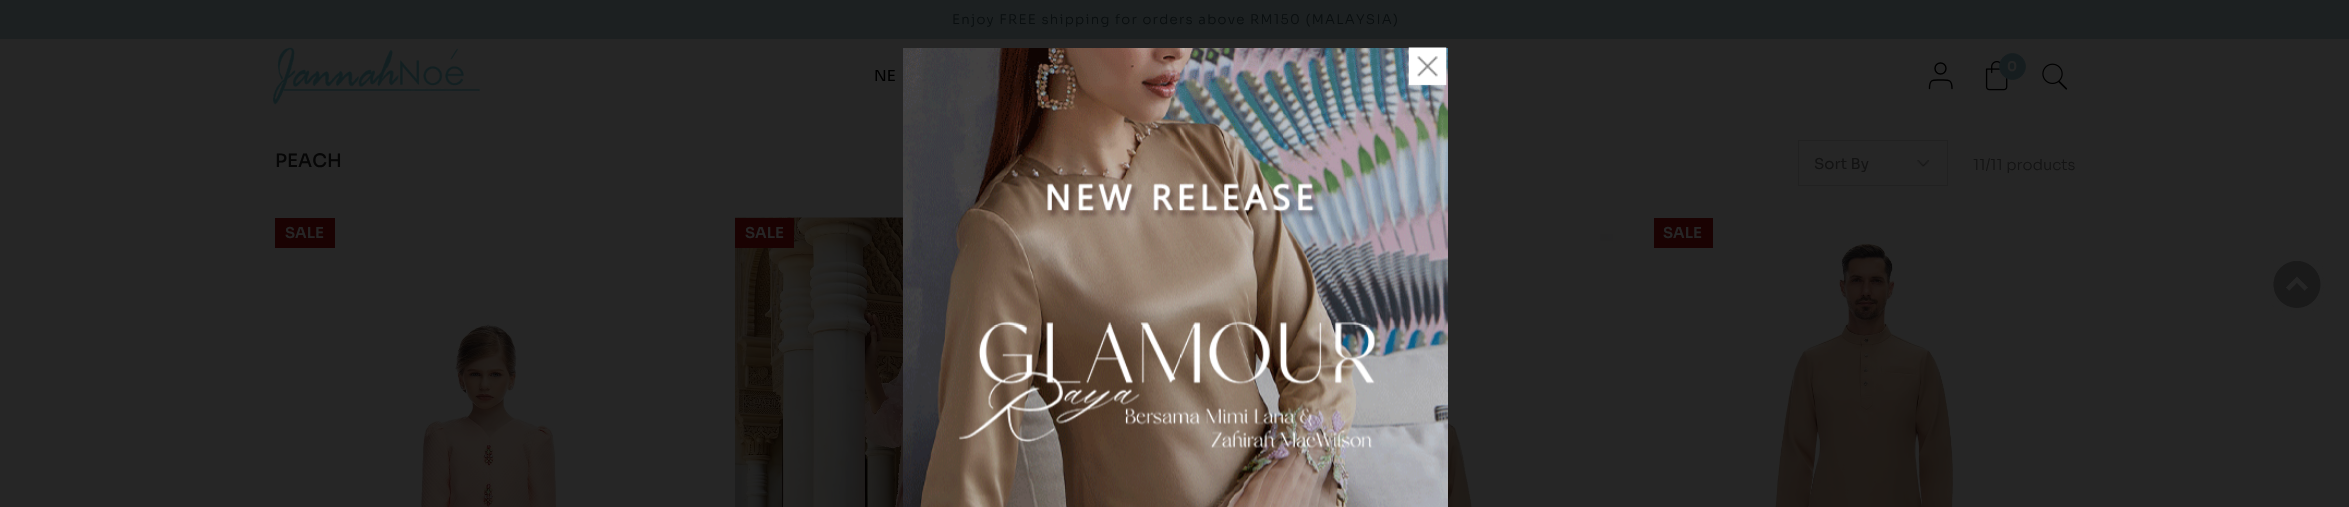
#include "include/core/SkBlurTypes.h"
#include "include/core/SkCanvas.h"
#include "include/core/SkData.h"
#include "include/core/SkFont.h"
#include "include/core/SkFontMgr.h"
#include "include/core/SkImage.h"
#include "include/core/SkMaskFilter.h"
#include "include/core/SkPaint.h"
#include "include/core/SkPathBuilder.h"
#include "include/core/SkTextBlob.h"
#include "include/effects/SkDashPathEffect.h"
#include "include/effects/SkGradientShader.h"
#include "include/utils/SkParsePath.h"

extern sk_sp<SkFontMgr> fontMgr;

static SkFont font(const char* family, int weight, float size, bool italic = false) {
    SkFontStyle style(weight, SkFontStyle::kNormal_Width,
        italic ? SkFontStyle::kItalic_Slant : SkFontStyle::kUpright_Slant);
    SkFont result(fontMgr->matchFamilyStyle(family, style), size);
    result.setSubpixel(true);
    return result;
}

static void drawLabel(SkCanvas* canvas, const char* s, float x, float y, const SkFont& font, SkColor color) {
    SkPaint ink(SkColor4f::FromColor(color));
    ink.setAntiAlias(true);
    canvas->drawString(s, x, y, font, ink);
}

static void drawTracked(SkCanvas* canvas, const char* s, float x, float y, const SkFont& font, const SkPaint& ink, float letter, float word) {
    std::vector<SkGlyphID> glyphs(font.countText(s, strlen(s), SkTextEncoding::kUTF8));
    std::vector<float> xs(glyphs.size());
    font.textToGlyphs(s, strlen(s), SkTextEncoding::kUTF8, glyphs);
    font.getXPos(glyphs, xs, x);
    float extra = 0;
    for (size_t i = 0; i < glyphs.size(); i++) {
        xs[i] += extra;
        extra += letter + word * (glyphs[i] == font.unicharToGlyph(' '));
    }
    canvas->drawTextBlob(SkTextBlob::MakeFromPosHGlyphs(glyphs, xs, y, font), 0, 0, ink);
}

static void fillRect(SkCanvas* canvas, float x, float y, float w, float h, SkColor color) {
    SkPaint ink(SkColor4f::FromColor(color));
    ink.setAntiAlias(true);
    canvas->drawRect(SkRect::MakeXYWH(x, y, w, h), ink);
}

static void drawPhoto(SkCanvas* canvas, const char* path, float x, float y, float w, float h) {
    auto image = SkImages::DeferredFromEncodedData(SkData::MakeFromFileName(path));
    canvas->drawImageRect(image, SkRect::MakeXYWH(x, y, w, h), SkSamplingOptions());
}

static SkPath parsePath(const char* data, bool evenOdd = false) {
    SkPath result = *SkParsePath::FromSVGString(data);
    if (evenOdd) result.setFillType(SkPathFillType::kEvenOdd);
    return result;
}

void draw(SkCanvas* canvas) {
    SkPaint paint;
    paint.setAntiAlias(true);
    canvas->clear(0xFF262626);
    fillRect(canvas, 0, 0, 2349, 39, 0xFF1C2021);
    SkFont font1 = font("Sora", 300, 13.35f);
    paint.setColor(0xFF090E0F);
    drawTracked(canvas, "Enjoy FREE shipping for orders above RM150 (MALAYSIA)", 952, 24, font1, paint, 1.25f, 0);
    drawPhoto(canvas, "assets/img1.png", 273, 47, 207, 58);
    paint.setStroke(true);
    paint.setStrokeWidth(1.4f);
    paint.setColor(0xFF000000);
    canvas->drawCircle(1940.5f, 68.5f, 5.5f, paint);
    paint.setStrokeCap(SkPaint::kRound_Cap);
    paint.setStrokeJoin(SkPaint::kRound_Join);
    canvas->drawPath(parsePath("M1952 88.5C1952 79 1948.5 80 1940.5 80C1932.5 80 1929.5 79 1929.5 88.5"), paint);
    drawPhoto(canvas, "assets/img2.png", 1985, 61, 23, 30);
    paint.setStroke(false);
    paint.setColor(0xFF161D1F);
    canvas->drawCircle(2012.5f, 66.5f, 13, paint);
    paint.setStroke(true);
    paint.setStrokeWidth(1);
    paint.setStrokeCap(SkPaint::kButt_Cap);
    paint.setStrokeJoin(SkPaint::kMiter_Join);
    canvas->drawCircle(2012.5f, 66.5f, 13, paint);
    SkFont font2 = font("Sora", 600, 13.35f);
    paint.setStroke(false);
    paint.setColor(0xFF262626);
    drawTracked(canvas, "0", 2007, 71, font2, paint, 1.25f, 0);
    drawPhoto(canvas, "assets/img3.png", 2042, 63, 26, 27);
    SkFont font3 = font("Sora", 400, 15);
    drawLabel(canvas, "NE", 874, 81, font3, 0xFF000000);
    drawPhoto(canvas, "assets/img5.png", 903, 48, 545, 459);
    drawPhoto(canvas, "assets/img4.png", 1408, 47, 39, 39);
    SkFont font4 = font("Sora", 500, 18.5f);
    drawLabel(canvas, "PEACH", 275, 167, font4, 0xFF060606);
    drawPhoto(canvas, "assets/img6.png", 1917, 159, 13, 8);
    paint.setStroke(true);
    paint.setColor(0xFF212121);
    canvas->drawRect(SkRect::MakeXYWH(1798.5f, 140.5f, 149, 45), paint);
    drawLabel(canvas, "Sort By", 1814, 169, font3, 0xFF131313);
    SkFont font5 = font("Sora", 300, 15);
    drawLabel(canvas, "11/11 products", 1973, 170, font5, 0xFF131313);
    fillRect(canvas, 275, 218, 60, 30, 0xFF1A0202);
    SkFont font6 = font("Sora", 600, 15);
    drawLabel(canvas, "SALE", 285, 238, font6, 0xFF262626);
    drawPhoto(canvas, "assets/img7.png", 419, 323, 138, 184);
    drawPhoto(canvas, "assets/img8.png", 735, 217, 168, 290);
    fillRect(canvas, 735, 218, 59, 30, 0xFF1A0202);
    drawLabel(canvas, "SALE", 745, 238, font6, 0xFF262626);
    fillRect(canvas, 1654, 218, 59, 30, 0xFF1A0202);
    drawLabel(canvas, "SALE", 1663, 238, font6, 0xFF262626);
    drawPhoto(canvas, "assets/img9.png", 1774, 243, 180, 264);
    drawPhoto(canvas, "assets/img10.png", 1448, 234, 165, 273);
    drawPhoto(canvas, "assets/img11.png", 2272, 260, 52, 51);
}
